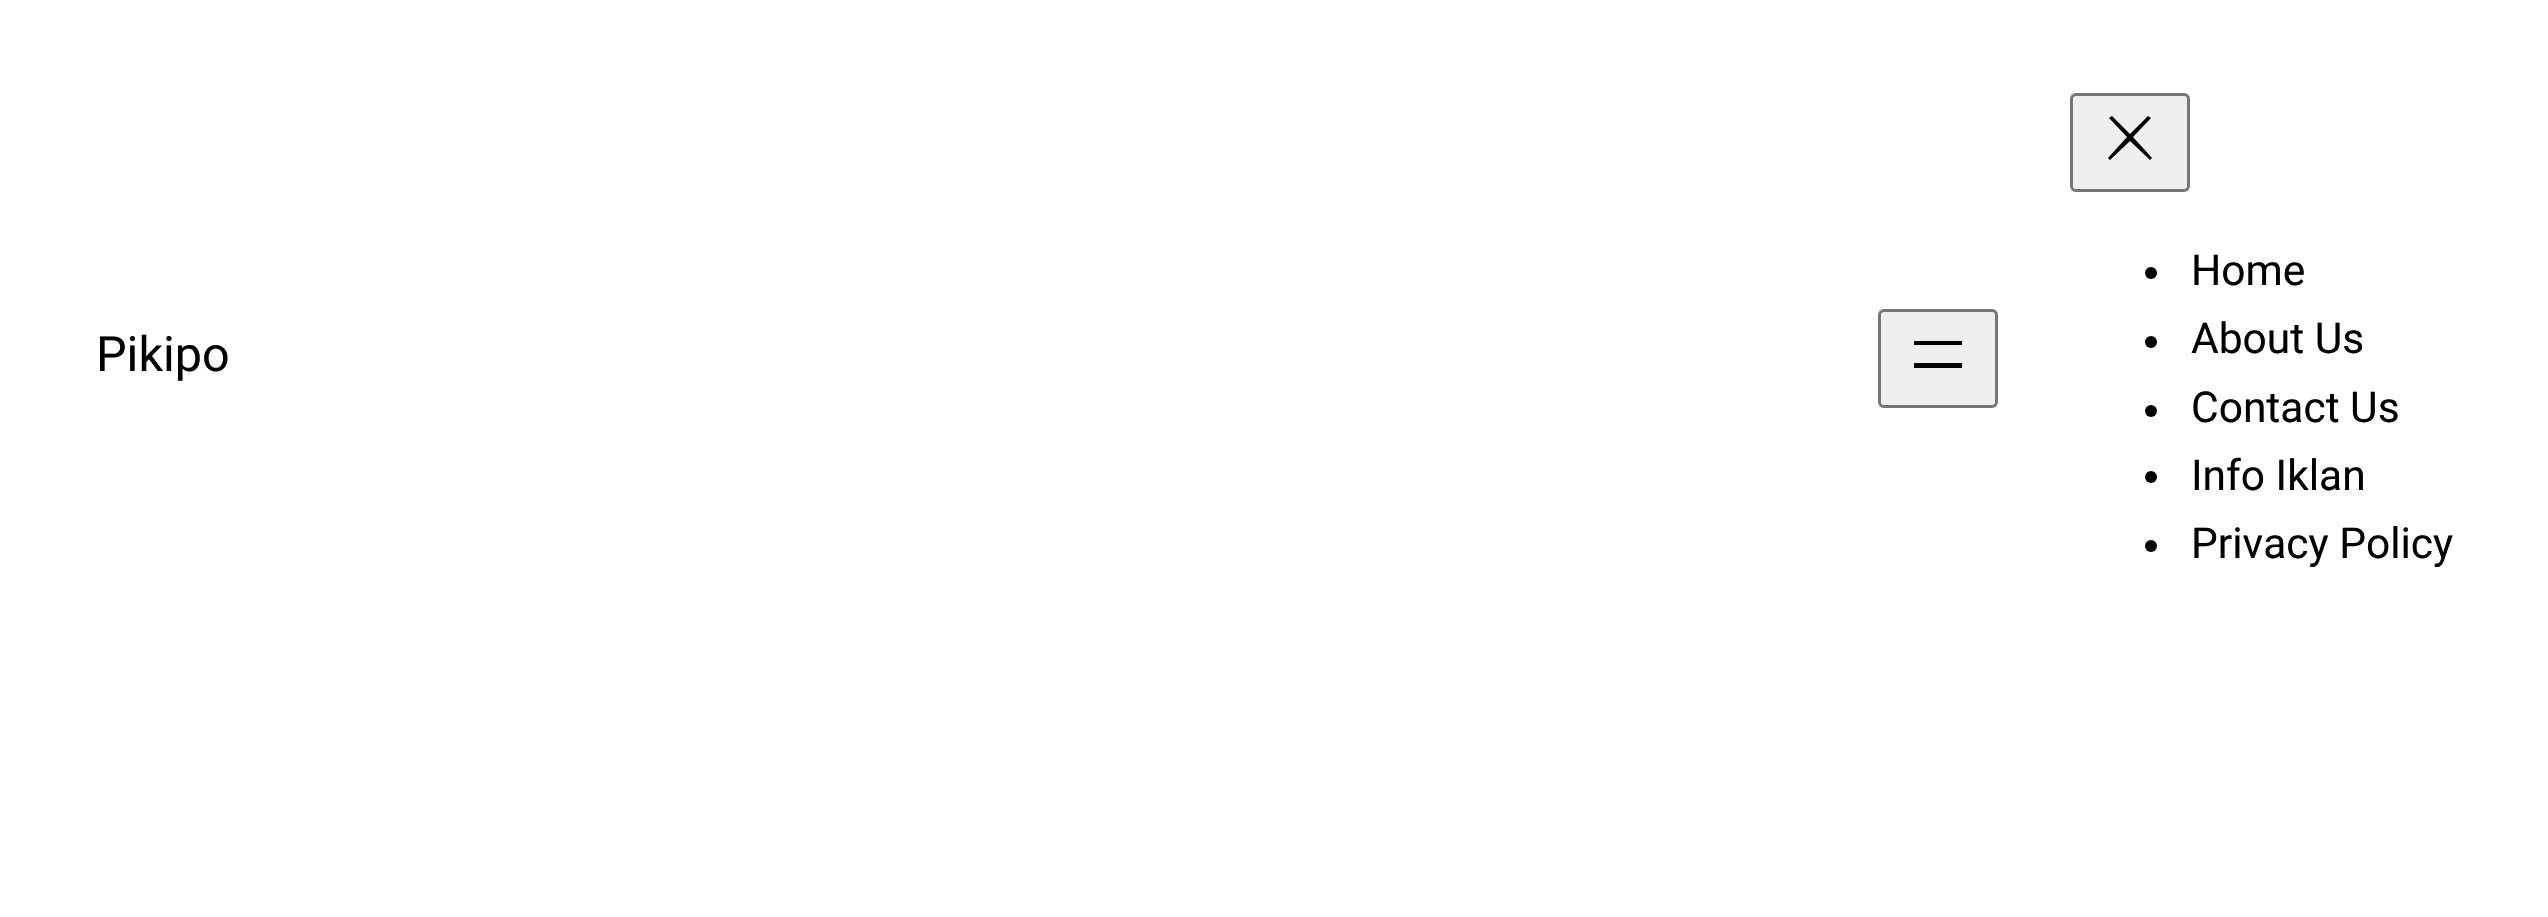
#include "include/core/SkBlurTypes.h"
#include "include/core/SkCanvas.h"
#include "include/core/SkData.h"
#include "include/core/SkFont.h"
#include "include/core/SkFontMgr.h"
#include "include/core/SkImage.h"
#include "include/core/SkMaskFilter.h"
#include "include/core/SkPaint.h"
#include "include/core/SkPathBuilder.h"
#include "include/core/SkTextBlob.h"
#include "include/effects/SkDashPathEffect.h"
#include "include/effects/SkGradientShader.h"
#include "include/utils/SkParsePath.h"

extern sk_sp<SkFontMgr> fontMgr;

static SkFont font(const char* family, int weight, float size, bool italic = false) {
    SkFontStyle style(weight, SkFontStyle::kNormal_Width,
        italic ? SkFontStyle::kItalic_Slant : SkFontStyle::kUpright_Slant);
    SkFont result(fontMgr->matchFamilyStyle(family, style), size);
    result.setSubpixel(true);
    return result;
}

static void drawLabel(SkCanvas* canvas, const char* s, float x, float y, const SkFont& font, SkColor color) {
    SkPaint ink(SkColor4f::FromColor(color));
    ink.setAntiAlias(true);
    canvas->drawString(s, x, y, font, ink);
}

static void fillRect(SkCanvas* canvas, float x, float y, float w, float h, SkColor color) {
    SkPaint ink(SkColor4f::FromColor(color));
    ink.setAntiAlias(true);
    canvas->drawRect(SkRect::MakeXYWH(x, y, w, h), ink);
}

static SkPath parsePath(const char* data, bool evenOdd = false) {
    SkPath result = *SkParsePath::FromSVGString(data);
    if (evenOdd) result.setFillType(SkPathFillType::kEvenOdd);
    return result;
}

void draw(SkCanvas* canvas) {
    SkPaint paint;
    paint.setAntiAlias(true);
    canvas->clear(0xFFFFFFFF);
    SkFont font1 = font("Roboto", 400, 48.5f);
    drawLabel(canvas, "Pikipo", 96, 371, font1, 0xFF000000);
    paint.setColor(0xFFEFEFEF);
    canvas->drawRoundRect(SkRect::MakeXYWH(1879.5f, 310.5f, 117, 96), 4.5f, 4.5f, paint);
    paint.setStroke(true);
    paint.setStrokeWidth(3);
    paint.setColor(0xFF767676);
    canvas->drawRoundRect(SkRect::MakeXYWH(1879.5f, 310.5f, 117, 96), 4.5f, 4.5f, paint);
    fillRect(canvas, 1914, 341, 48, 4, 0xFF000000);
    fillRect(canvas, 1914, 363, 48, 5, 0xFF000000);
    paint.setStroke(false);
    paint.setColor(0xFFEFEFEF);
    canvas->drawRoundRect(SkRect::MakeXYWH(2071.5f, 94.5f, 117, 96), 4.5f, 4.5f, paint);
    paint.setStroke(true);
    paint.setColor(0xFF767676);
    canvas->drawRoundRect(SkRect::MakeXYWH(2071.5f, 94.5f, 117, 96), 4.5f, 4.5f, paint);
    paint.setStroke(false);
    paint.setColor(0xFF000000);
    canvas->drawPath(parsePath("M2133 137L2151 118L2148 116L2130 134L2112 116L2109 118L2127 137L2108 158L2110 160L2130 141L2150 160L2152 158Z"), paint);
    canvas->drawCircle(2151, 273, 6, paint);
    SkFont font2 = font("Roboto", 400, 42.5f);
    drawLabel(canvas, "Home", 2191, 285, font2, 0xFF000000);
    canvas->drawCircle(2151, 342, 6, paint);
    drawLabel(canvas, "About Us", 2191, 353, font2, 0xFF000000);
    canvas->drawCircle(2151, 411, 6, paint);
    drawLabel(canvas, "Contact Us", 2191, 422, font2, 0xFF000000);
    canvas->drawCircle(2151, 477, 6, paint);
    drawLabel(canvas, "Info Iklan", 2191, 490, font2, 0xFF000000);
    canvas->drawCircle(2151, 546, 6, paint);
    drawLabel(canvas, "Privacy Policy", 2191, 558, font2, 0xFF000000);
}
